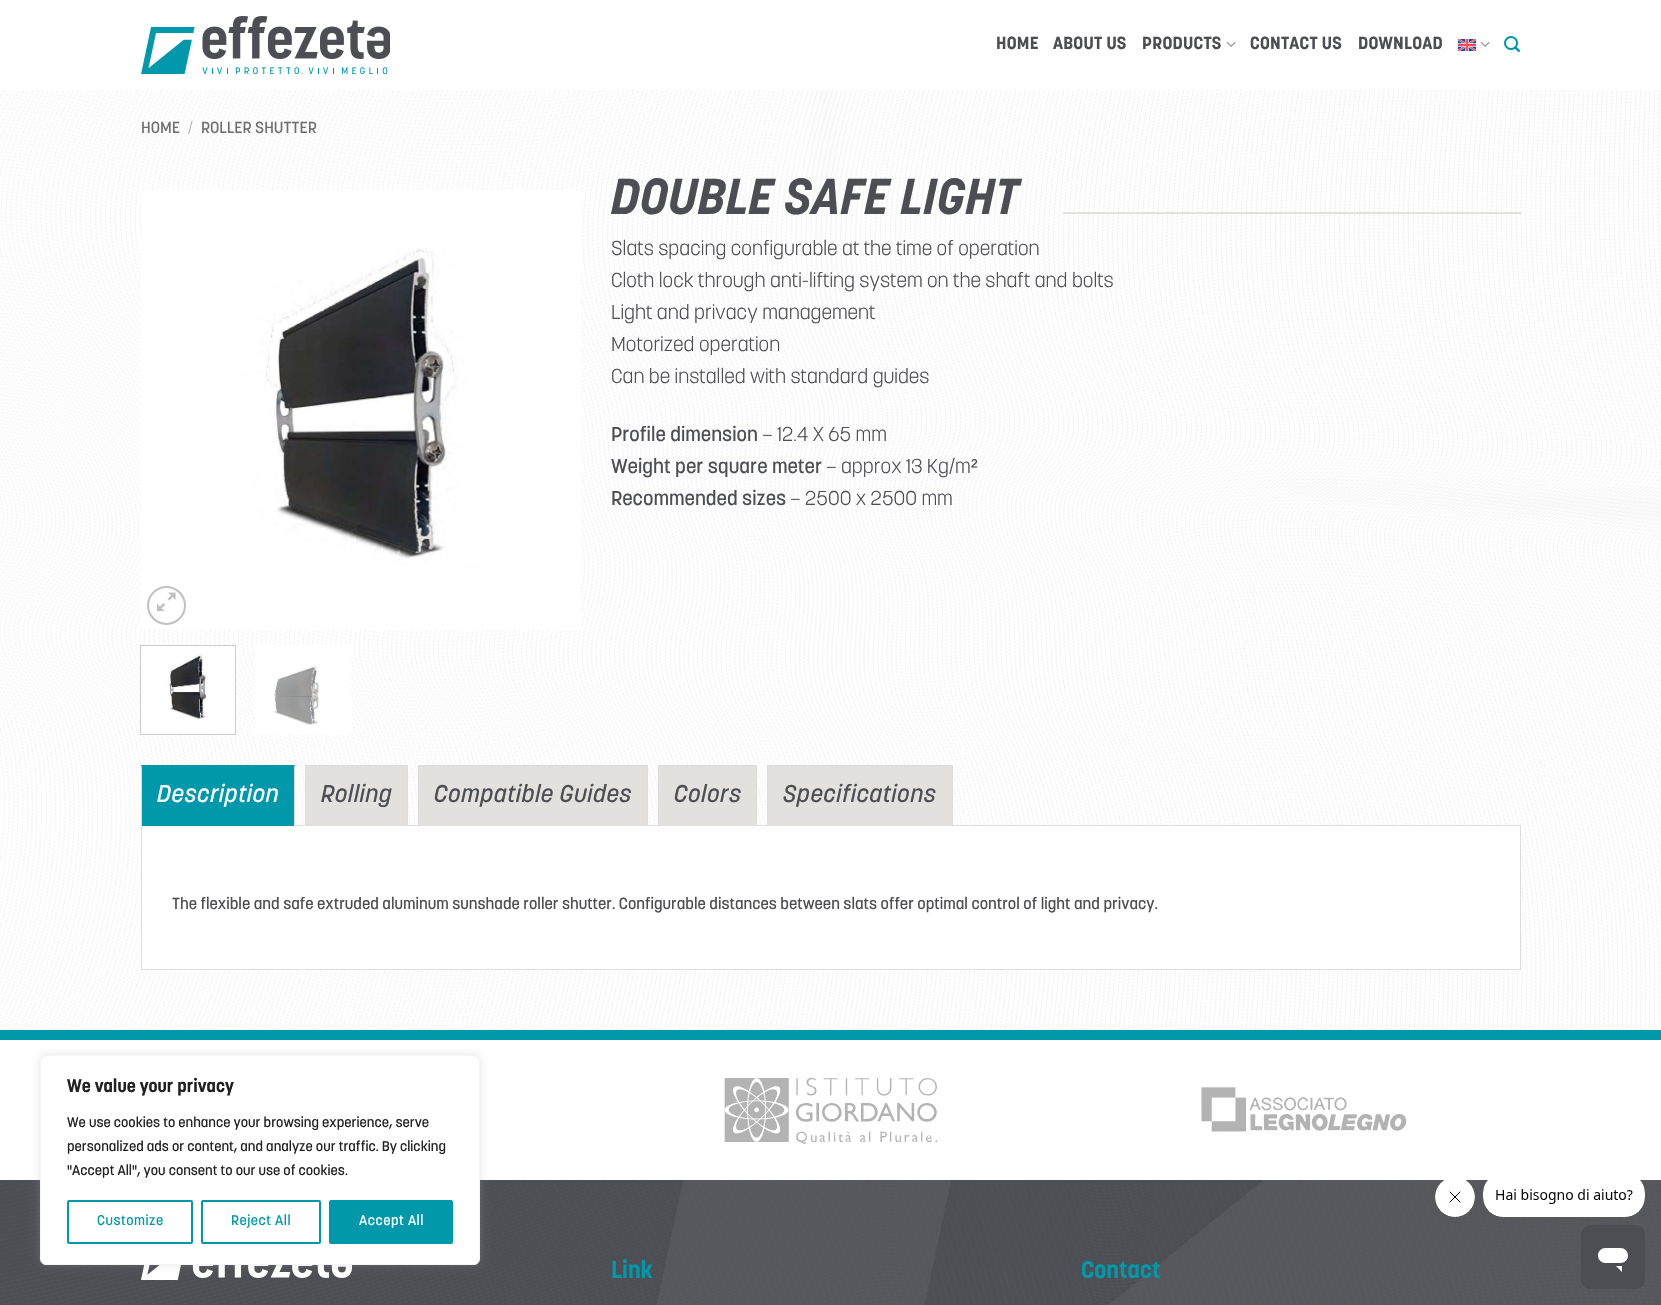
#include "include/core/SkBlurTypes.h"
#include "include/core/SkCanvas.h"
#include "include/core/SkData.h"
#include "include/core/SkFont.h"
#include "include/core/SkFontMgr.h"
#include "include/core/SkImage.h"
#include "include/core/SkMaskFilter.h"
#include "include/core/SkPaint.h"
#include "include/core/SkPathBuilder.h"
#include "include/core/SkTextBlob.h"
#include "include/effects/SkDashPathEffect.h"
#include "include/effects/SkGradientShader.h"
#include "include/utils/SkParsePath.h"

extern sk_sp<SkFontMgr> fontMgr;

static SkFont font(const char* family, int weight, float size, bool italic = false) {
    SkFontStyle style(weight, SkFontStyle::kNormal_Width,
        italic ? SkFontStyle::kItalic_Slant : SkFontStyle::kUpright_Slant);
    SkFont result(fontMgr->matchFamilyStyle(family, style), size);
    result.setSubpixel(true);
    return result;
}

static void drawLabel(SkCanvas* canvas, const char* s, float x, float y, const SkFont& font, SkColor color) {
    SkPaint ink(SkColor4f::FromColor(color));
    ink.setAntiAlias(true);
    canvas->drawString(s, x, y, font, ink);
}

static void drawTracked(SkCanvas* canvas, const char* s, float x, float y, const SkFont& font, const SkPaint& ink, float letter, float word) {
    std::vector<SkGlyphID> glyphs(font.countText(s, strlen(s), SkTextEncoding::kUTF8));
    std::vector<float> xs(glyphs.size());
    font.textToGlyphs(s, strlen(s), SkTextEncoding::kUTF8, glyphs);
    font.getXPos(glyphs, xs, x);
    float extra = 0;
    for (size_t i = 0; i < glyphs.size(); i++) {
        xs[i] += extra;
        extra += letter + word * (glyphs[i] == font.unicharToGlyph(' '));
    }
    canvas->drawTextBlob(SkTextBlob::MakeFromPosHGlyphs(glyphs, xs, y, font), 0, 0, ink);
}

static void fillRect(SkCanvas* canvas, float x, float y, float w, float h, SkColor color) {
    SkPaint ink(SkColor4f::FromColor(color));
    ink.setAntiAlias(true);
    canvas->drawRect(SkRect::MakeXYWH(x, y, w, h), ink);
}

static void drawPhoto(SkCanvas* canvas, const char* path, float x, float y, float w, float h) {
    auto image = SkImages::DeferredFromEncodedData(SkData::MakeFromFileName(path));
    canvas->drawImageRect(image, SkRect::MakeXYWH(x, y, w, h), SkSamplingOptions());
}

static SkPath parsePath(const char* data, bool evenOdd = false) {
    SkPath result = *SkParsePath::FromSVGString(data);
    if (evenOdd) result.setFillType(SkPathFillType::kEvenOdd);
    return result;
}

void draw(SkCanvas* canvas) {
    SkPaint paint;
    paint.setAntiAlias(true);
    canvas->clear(0xFFFFFFFF);
    drawPhoto(canvas, "assets/img1.png", 141, 16, 249, 58);
    SkFont font1 = font("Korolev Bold", 700, 17.5f);
    paint.setColor(0xFF4D4E53);
    drawTracked(canvas, "HOME", 996, 49, font1, paint, 0.25f, 0);
    drawTracked(canvas, "ABOUT US", 1053, 49, font1, paint, 0.25f, 0);
    drawTracked(canvas, "PRODUCTS", 1142, 49, font1, paint, 0.25f, 0);
    drawPhoto(canvas, "assets/img2.png", 1226, 41, 10, 6);
    drawTracked(canvas, "CONTACT US", 1250, 49, font1, paint, 0.25f, 0);
    drawTracked(canvas, "DOWNLOAD", 1358, 49, font1, paint, 0.25f, 0);
    drawPhoto(canvas, "assets/img3.png", 1458, 39, 18, 12);
    drawPhoto(canvas, "assets/img2.png", 1480, 41, 10, 6);
    drawPhoto(canvas, "assets/img4.png", 1504, 36, 16, 16);
    drawPhoto(canvas, "assets/img5.png", 0, 90, 1661, 940);
    SkFont font2 = font("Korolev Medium", 500, 16);
    drawLabel(canvas, "HOME", 141, 133, font2, 0xFF6E6E6E);
    SkFont font3 = font("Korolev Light", 300, 16);
    drawLabel(canvas, "/", 188, 133, font3, 0xFFAFAFAF);
    drawLabel(canvas, "ROLLER SHUTTER", 201, 133, font2, 0xFF6E6E6E);
    drawPhoto(canvas, "assets/img6.png", 141, 190, 440, 440);
    paint.setStroke(true);
    paint.setStrokeWidth(2);
    paint.setColor(0xFFC0C0C0);
    canvas->drawCircle(166.5f, 605.5f, 18.5f, paint);
    drawPhoto(canvas, "assets/img7.png", 157, 592, 19, 20);
    paint.setStroke(false);
    paint.setColor(0xFFFFFFFF);
    canvas->drawRect(SkRect::MakeXYWH(140.5f, 645.5f, 95, 89), paint);
    paint.setStroke(true);
    paint.setStrokeWidth(1);
    paint.setColor(0xFFCCCCCC);
    canvas->drawRect(SkRect::MakeXYWH(140.5f, 645.5f, 95, 89), paint);
    drawPhoto(canvas, "assets/img8.png", 167, 653, 41, 66);
    fillRect(canvas, 255, 645, 96, 90, 0xFFFFFFFF);
    drawPhoto(canvas, "assets/img9.png", 274, 665, 46, 60);
    SkFont font4 = font("Korolev Bold", 700, 50, true);
    drawLabel(canvas, "DOUBLE SAFE LIGHT", 611, 214, font4, 0xFF4D4E53);
    fillRect(canvas, 1063, 212, 458, 2, 0xFFE2E1DD);
    SkFont font5 = font("Korolev Light", 300, 20);
    drawLabel(canvas, "Slats spacing configurable at the time of operation", 611, 255, font5, 0xFF4D4E53);
    drawLabel(canvas, "Cloth lock through anti-lifting system on the shaft and bolts", 611, 287, font5, 0xFF4D4E53);
    drawLabel(canvas, "Light and privacy management", 611, 319, font5, 0xFF4D4E53);
    drawLabel(canvas, "Motorized operation", 611, 351, font5, 0xFF4D4E53);
    drawLabel(canvas, "Can be installed with standard guides", 611, 383, font5, 0xFF4D4E53);
    SkFont font6 = font("Korolev Medium", 500, 20);
    drawLabel(canvas, "Profile dimension", 611, 441, font6, 0xFF4D4E53);
    drawLabel(canvas, "– 12.4 X 65 mm", 762, 441, font5, 0xFF4D4E53);
    drawLabel(canvas, "Weight per square meter", 611, 473, font6, 0xFF4D4E53);
    drawLabel(canvas, "– approx 13 Kg/m", 826, 473, font5, 0xFF4D4E53);
    SkFont font7 = font("Liberation Sans", 400, 20);
    drawLabel(canvas, "²", 971, 473, font7, 0xFF4D4E53);
    drawLabel(canvas, "Recommended sizes", 611, 505, font6, 0xFF4D4E53);
    drawLabel(canvas, "– 2500 x 2500 mm", 790, 505, font5, 0xFF4D4E53);
    paint.setStroke(false);
    paint.setColor(0xFFFFFFFF);
    canvas->drawRect(SkRect::MakeXYWH(141.5f, 825.5f, 1379, 144), paint);
    paint.setStroke(true);
    paint.setColor(0xFFDDDDDD);
    canvas->drawRect(SkRect::MakeXYWH(141.5f, 825.5f, 1379, 144), paint);
    fillRect(canvas, 141, 765, 154, 61, 0xFF0098AA);
    paint.setStroke(false);
    canvas->drawPath(parsePath("M295 765V826H294V767Z"), paint);
    canvas->drawPath(parsePath("M141 826V765L142 767V826Z"), paint);
    SkFont font8 = font("Korolev Medium", 500, 24, true);
    paint.setColor(0xFFFFFFFF);
    drawTracked(canvas, "Description", 157, 802, font8, paint, 0.5f, 0);
    fillRect(canvas, 306, 767, 101, 59, 0xFFE2E1DD);
    fillRect(canvas, 305, 765, 103, 2, 0xFFDDDDDD);
    fillRect(canvas, 407, 765, 1, 61, 0xFFDDDDDD);
    fillRect(canvas, 305, 765, 1, 61, 0xFFDDDDDD);
    paint.setColor(0xFF4D4E53);
    drawTracked(canvas, "Rolling", 321, 802, font8, paint, 0.5f, 0);
    fillRect(canvas, 419, 767, 228, 59, 0xFFE2E1DD);
    fillRect(canvas, 418, 765, 230, 2, 0xFFDDDDDD);
    fillRect(canvas, 647, 765, 1, 61, 0xFFDDDDDD);
    fillRect(canvas, 418, 765, 1, 61, 0xFFDDDDDD);
    drawTracked(canvas, "Compatible Guides", 434, 802, font8, paint, 0.5f, 0);
    fillRect(canvas, 659, 767, 97, 59, 0xFFE2E1DD);
    fillRect(canvas, 658, 765, 99, 2, 0xFFDDDDDD);
    fillRect(canvas, 756, 765, 1, 61, 0xFFDDDDDD);
    fillRect(canvas, 658, 765, 1, 61, 0xFFDDDDDD);
    drawTracked(canvas, "Colors", 674, 802, font8, paint, 0.5f, 0);
    fillRect(canvas, 768, 767, 184, 59, 0xFFE2E1DD);
    fillRect(canvas, 767, 765, 186, 2, 0xFFDDDDDD);
    fillRect(canvas, 952, 765, 1, 61, 0xFFDDDDDD);
    fillRect(canvas, 767, 765, 1, 61, 0xFFDDDDDD);
    drawTracked(canvas, "Specifications", 783, 802, font8, paint, 0.5f, 0);
    drawLabel(canvas, "The flexible and safe extruded aluminum sunshade roller shutter. Configurable distances between slats offer optimal control of light and privacy.", 172, 909, font2, 0xFF4D4E53);
    fillRect(canvas, 0, 1030, 1661, 10, 0xFF0098AA);
    drawPhoto(canvas, "assets/img10.png", 724, 1077, 214, 67);
    drawPhoto(canvas, "assets/img11.png", 1201, 1087, 206, 45);
    drawPhoto(canvas, "assets/img12.png", 0, 1180, 1661, 125);
    drawPhoto(canvas, "assets/img13.png", 141, 1265, 211, 15);
    SkFont font9 = font("Korolev Bold", 700, 24);
    drawLabel(canvas, "Link", 611, 1278, font9, 0xFF0098AA);
    drawLabel(canvas, "Contact", 1081, 1278, font9, 0xFF0098AA);
    paint.setColor(0x4DACABAB);
    paint.setMaskFilter(SkMaskFilter::MakeBlur(kNormal_SkBlurStyle, 5));
    canvas->drawRoundRect(SkRect::MakeXYWH(40, 1054, 440, 210), 6, 6, paint);
    paint.setMaskFilter(nullptr);
    paint.setColor(0xFFFFFFFF);
    canvas->drawRoundRect(SkRect::MakeXYWH(40.5f, 1055.5f, 439, 209), 5.5f, 5.5f, paint);
    paint.setStroke(true);
    paint.setColor(0xFFF4F4F4);
    canvas->drawRoundRect(SkRect::MakeXYWH(40.5f, 1055.5f, 439, 209), 5.5f, 5.5f, paint);
    SkFont font10 = font("Korolev Bold", 700, 18);
    drawLabel(canvas, "We value your privacy", 67, 1092, font10, 0xFF212121);
    SkFont font11 = font("Korolev Medium", 500, 14);
    drawLabel(canvas, "We use cookies to enhance your browsing experience, serve", 67, 1127, font11, 0xFF212121);
    drawLabel(canvas, "personalized ads or content, and analyze our traffic. By clicking", 67, 1151, font11, 0xFF212121);
    drawLabel(canvas, "\"Accept All\", you consent to our use of cookies.", 67, 1175, font11, 0xFF212121);
    paint.setStrokeWidth(2);
    paint.setColor(0xFF0098AA);
    canvas->drawRoundRect(SkRect::MakeXYWH(68, 1201, 124, 42), 1, 1, paint);
    paint.setStroke(false);
    drawTracked(canvas, "Customize", 97, 1225, font11, paint, 0.5f, 0);
    paint.setStroke(true);
    canvas->drawRoundRect(SkRect::MakeXYWH(202, 1201, 118, 42), 1, 1, paint);
    paint.setStroke(false);
    drawTracked(canvas, "Reject All", 231, 1225, font11, paint, 0.5f, 0);
    canvas->drawRoundRect(SkRect::MakeXYWH(330, 1201, 122, 42), 1, 1, paint);
    paint.setStroke(true);
    canvas->drawRoundRect(SkRect::MakeXYWH(330, 1201, 122, 42), 1, 1, paint);
    paint.setStroke(false);
    paint.setColor(0xFFFFFFFF);
    drawTracked(canvas, "Accept All", 359, 1225, font11, paint, 0.5f, 0);
    drawPhoto(canvas, "assets/img14.png", 1435, 1180, 40, 37);
    drawPhoto(canvas, "assets/img15.png", 1483, 1180, 162, 37);
    drawPhoto(canvas, "assets/img16.png", 1581, 1225, 64, 64);
}
